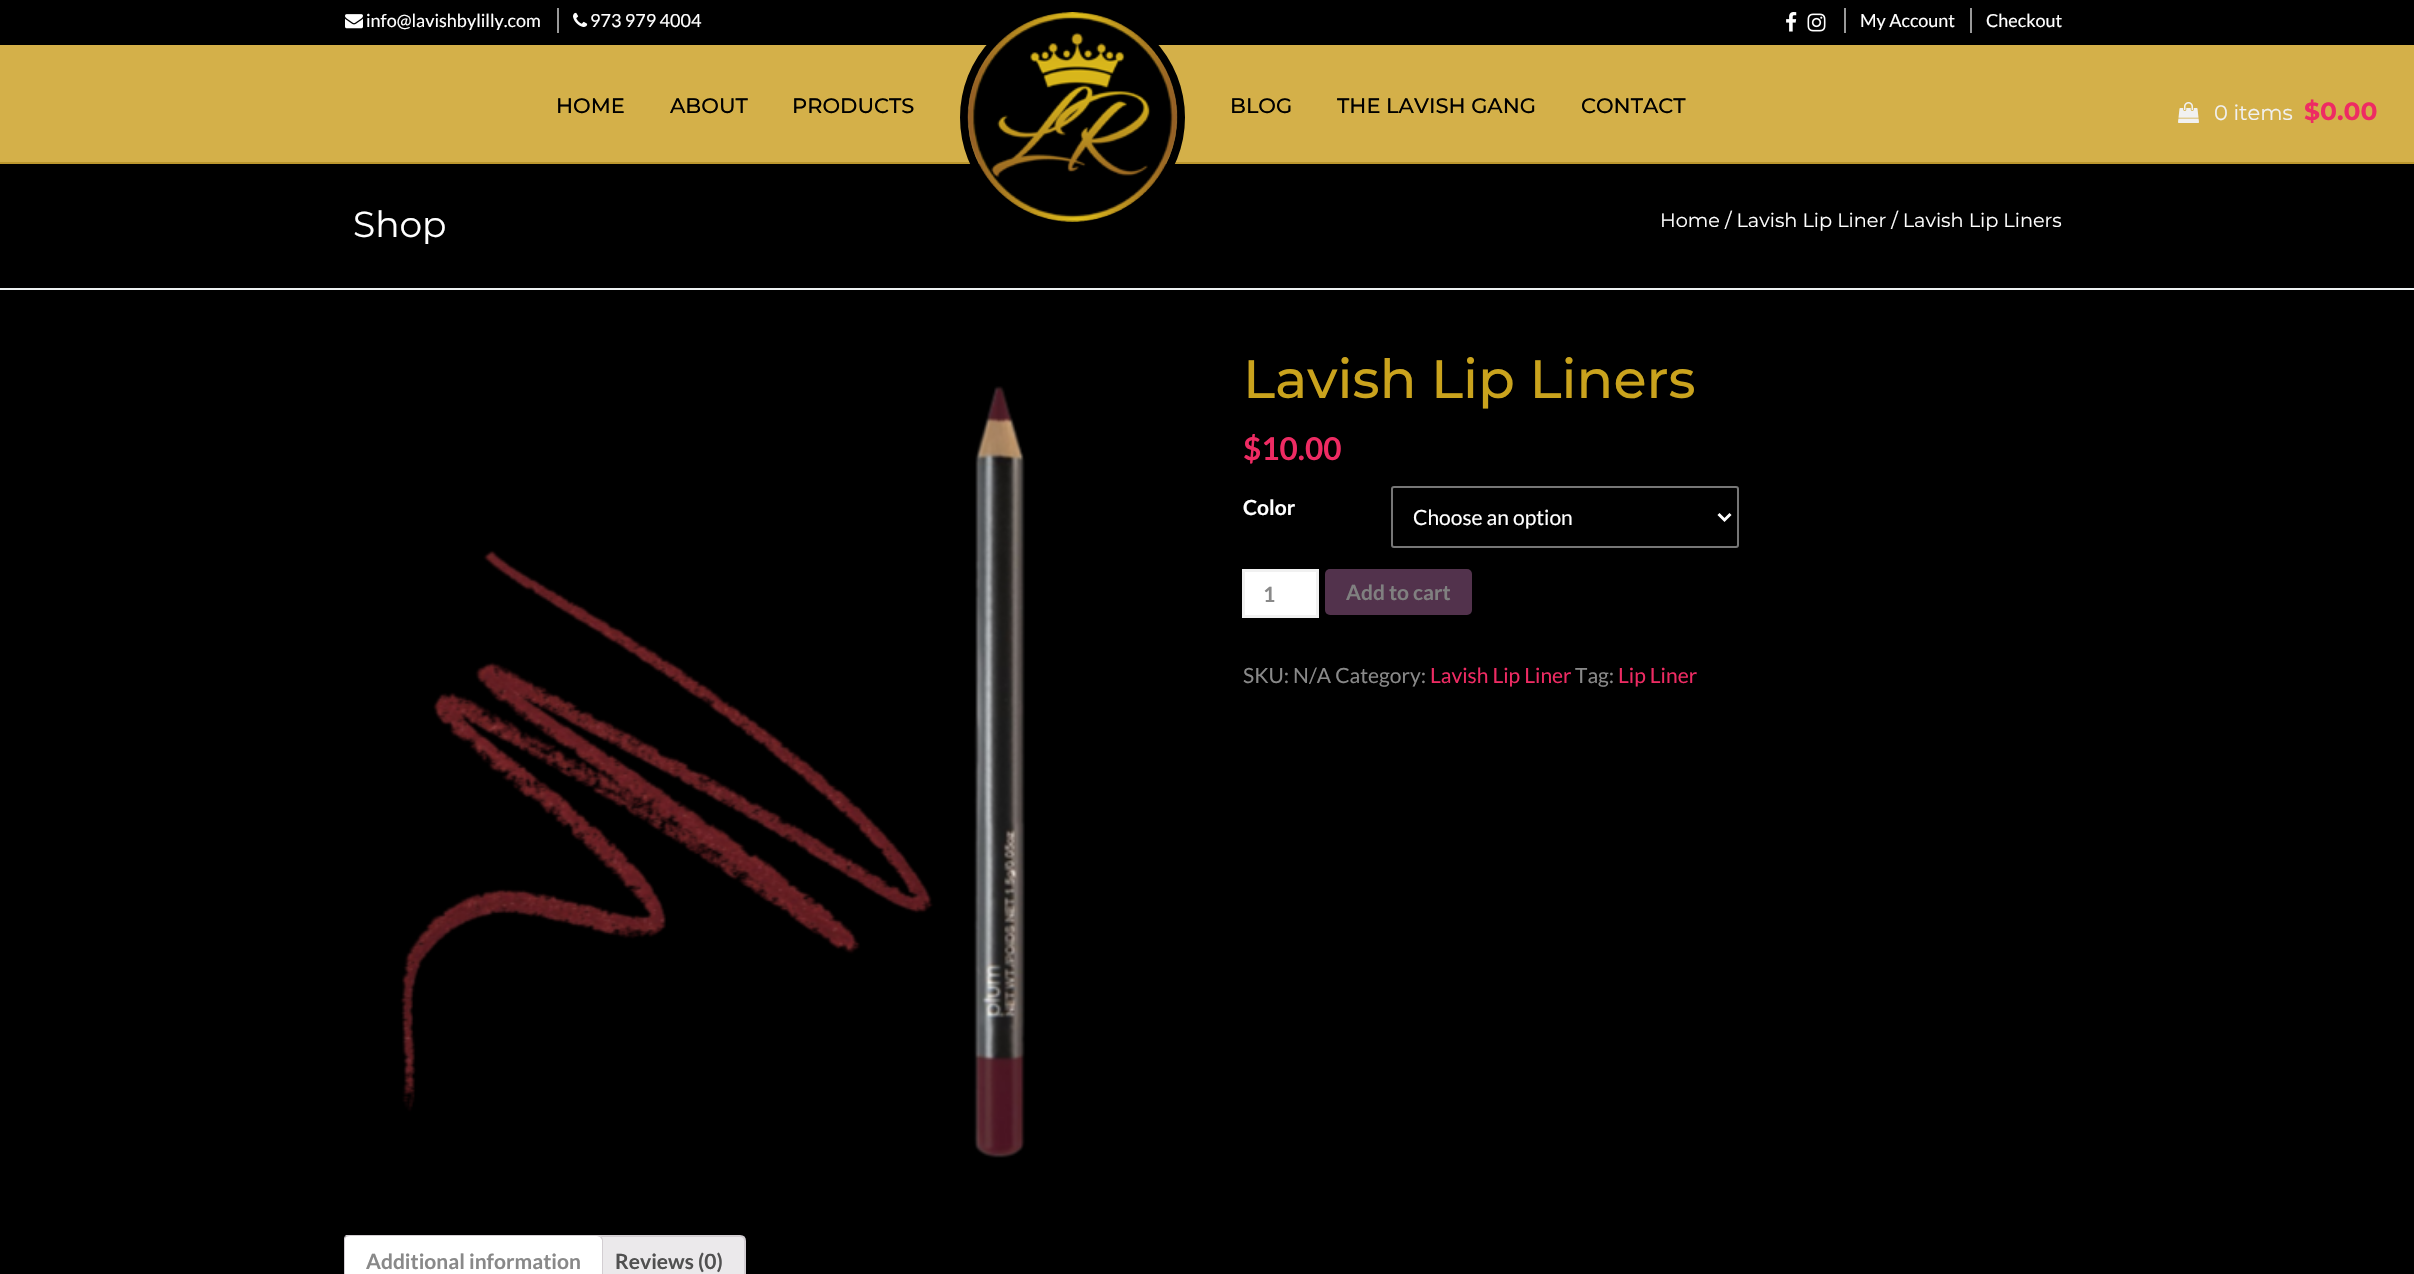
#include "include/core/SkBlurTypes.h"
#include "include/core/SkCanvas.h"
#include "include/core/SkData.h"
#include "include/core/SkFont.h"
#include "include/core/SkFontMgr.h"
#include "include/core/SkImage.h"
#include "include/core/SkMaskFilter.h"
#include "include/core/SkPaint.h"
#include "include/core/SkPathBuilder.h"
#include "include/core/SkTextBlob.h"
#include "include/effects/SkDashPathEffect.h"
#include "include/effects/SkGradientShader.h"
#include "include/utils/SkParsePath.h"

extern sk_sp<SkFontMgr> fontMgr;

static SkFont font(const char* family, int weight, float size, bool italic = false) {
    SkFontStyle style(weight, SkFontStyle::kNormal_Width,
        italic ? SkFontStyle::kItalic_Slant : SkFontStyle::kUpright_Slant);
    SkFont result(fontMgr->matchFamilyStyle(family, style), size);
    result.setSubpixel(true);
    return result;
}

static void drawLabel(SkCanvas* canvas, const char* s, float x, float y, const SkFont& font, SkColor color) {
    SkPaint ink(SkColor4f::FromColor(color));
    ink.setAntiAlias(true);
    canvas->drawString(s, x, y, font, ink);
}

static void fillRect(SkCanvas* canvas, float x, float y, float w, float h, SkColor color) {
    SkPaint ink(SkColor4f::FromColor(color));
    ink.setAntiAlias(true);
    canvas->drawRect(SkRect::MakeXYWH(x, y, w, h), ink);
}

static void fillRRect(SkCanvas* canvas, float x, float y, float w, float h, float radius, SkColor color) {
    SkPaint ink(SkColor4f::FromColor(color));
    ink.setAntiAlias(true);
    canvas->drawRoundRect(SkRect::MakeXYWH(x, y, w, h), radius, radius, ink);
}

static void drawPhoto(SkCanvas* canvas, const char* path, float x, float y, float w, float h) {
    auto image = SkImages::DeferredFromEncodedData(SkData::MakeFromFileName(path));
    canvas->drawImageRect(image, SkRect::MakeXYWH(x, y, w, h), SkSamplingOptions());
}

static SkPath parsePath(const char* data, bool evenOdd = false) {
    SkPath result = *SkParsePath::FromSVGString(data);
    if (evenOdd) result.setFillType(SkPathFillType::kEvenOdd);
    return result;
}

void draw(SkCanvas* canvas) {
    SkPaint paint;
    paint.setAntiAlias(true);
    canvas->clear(0xFF000000);
    drawPhoto(canvas, "assets/img1.png", 345, 14, 18, 15);
    SkFont font1 = font("Lato", 400, 18);
    drawLabel(canvas, "info@lavishbylilly.com", 366, 27, font1, 0xFFFFFFFF);
    fillRect(canvas, 557, 8, 2, 25, 0xFF999999);
    drawPhoto(canvas, "assets/img2.png", 573, 12, 15, 15);
    drawLabel(canvas, "973 979 4004", 590, 27, font1, 0xFFFFFFFF);
    drawPhoto(canvas, "assets/img3.png", 1786, 12, 11, 20);
    drawPhoto(canvas, "assets/img4.png", 1807, 13, 19, 19);
    fillRect(canvas, 1844, 8, 2, 25, 0xFF999999);
    drawLabel(canvas, "My Account", 1860, 27, font1, 0xFFFFFFFF);
    fillRect(canvas, 1970, 8, 2, 25, 0xFF999999);
    drawLabel(canvas, "Checkout", 1986, 27, font1, 0xFFFFFFFF);
    fillRect(canvas, 0, 45, 2414, 117, 0xFFD4B049);
    fillRect(canvas, 0, 162, 2414, 2, 0xFFBC972E);
    SkFont font2 = font("Montserrat", 500, 21);
    drawLabel(canvas, "HOME", 556, 113, font2, 0xFF000000);
    drawLabel(canvas, "ABOUT", 670, 113, font2, 0xFF000000);
    drawLabel(canvas, "PRODUCTS", 792, 113, font2, 0xFF000000);
    paint.setStroke(true);
    paint.setStrokeWidth(8);
    paint.setColor(0xFF000000);
    canvas->drawCircle(1072.5f, 117.5f, 108.5f, paint);
    drawPhoto(canvas, "assets/img5.png", 967, 12, 211, 210);
    drawLabel(canvas, "BLOG", 1230, 113, font2, 0xFF000000);
    drawLabel(canvas, "THE LAVISH GANG", 1337, 113, font2, 0xFF000000);
    drawLabel(canvas, "CONTACT", 1581, 113, font2, 0xFF000000);
    drawPhoto(canvas, "assets/img6.png", 2178, 102, 21, 21);
    SkFont font3 = font("Montserrat", 400, 21);
    drawLabel(canvas, "0 items", 2214, 120, font3, 0xFFF1F1F1);
    SkFont font4 = font("Montserrat", 700, 25);
    drawLabel(canvas, "$0.00", 2304, 120, font4, 0xFFEE2B63);
    fillRect(canvas, 0, 288, 2414, 2, 0xFFECF0F1);
    SkFont font5 = font("Montserrat", 400, 36);
    drawLabel(canvas, "Shop", 353, 237, font5, 0xFFFFFFFF);
    SkFont font6 = font("Montserrat", 400, 19.3f);
    drawLabel(canvas, "Home / Lavish Lip Liner / Lavish Lip Liners", 1660, 227, font6, 0xFFFFFFFF);
    drawPhoto(canvas, "assets/img7.png", 400, 386, 625, 772);
    SkFont font7 = font("Montserrat", 500, 54);
    drawLabel(canvas, "Lavish Lip Liners", 1243, 398, font7, 0xFFCAA31D);
    SkFont font8 = font("Lato", 700, 31.5f);
    drawLabel(canvas, "$10.00", 1243, 460, font8, 0xFFEE2B63);
    SkFont font9 = font("Lato", 700, 21);
    drawLabel(canvas, "Color", 1243, 515, font9, 0xFFFFFFFF);
    paint.setStrokeWidth(2);
    paint.setColor(0xFF767676);
    canvas->drawRoundRect(SkRect::MakeXYWH(1392, 487, 346, 60), 2, 2, paint);
    paint.setStrokeWidth(3);
    paint.setColor(0xFFFFFFFF);
    canvas->drawPath(parsePath("M1718.5 514L1724.5 520L1730.5 514"), paint);
    SkFont font10 = font("Lato", 400, 21);
    drawLabel(canvas, "Choose an option", 1413, 525, font10, 0xFFFFFFFF);
    paint.setStroke(false);
    canvas->drawRect(SkRect::MakeXYWH(1243.5f, 570.5f, 74, 46), paint);
    paint.setStroke(true);
    paint.setColor(0xFFF1F1F1);
    canvas->drawRect(SkRect::MakeXYWH(1243.5f, 570.5f, 74, 46), paint);
    drawLabel(canvas, "1", 1263, 602, font9, 0xFF898989);
    fillRRect(canvas, 1325, 569, 147, 46, 5, 0xFF52324C);
    drawLabel(canvas, "Add to cart", 1346, 600, font9, 0xFF808080);
    drawLabel(canvas, "SKU: N/A Category:", 1243, 683, font10, 0xFF898989);
    drawLabel(canvas, "Lavish Lip Liner", 1430, 683, font10, 0xFFEE2B63);
    drawLabel(canvas, "Tag:", 1575, 683, font10, 0xFF898989);
    drawLabel(canvas, "Lip Liner", 1618, 683, font10, 0xFFEE2B63);
    paint.setStroke(false);
    paint.setColor(0xFFEBE9EB);
    canvas->drawPath(parsePath("M599 1236H740C743 1236 745 1238 745 1241V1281H594V1241C594 1238 596 1236 599 1236Z"), paint);
    paint.setStroke(true);
    paint.setStrokeWidth(2);
    paint.setColor(0xFFD3CED2);
    canvas->drawPath(parsePath("M599 1236H740C743 1236 745 1238 745 1241V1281H594V1241C594 1238 596 1236 599 1236Z"), paint);
    paint.setStroke(false);
    paint.setColor(0xFFFFFFFF);
    canvas->drawPath(parsePath("M350 1235H597C600.5 1235 603 1237.5 603 1241V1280H344V1241C344 1237.5 346.5 1235 350 1235Z"), paint);
    canvas->save();
    canvas->clipRect(SkRect::MakeXYWH(330, 1235, 1755, 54));
    paint.setColor(0xFFD3CED2);
    canvas->drawPath(parsePath("M350 1236C348 1236 347 1237 346 1237L345 1236L347 1234H599L601 1236L600 1237L597 1236Z"), paint);
    canvas->restore();
    canvas->drawPath(parsePath("M603 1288V1240C603 1239 602 1237 601 1236L600 1237L602 1240V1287Z"), paint);
    canvas->drawPath(parsePath("M344 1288L345 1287V1239L346 1237L345 1236C344 1237 344 1239 344 1240Z"), paint);
    drawLabel(canvas, "Additional information", 366, 1269, font9, 0xFF898989);
    drawLabel(canvas, "Reviews (0)", 615, 1269, font9, 0xFF515151);
}
